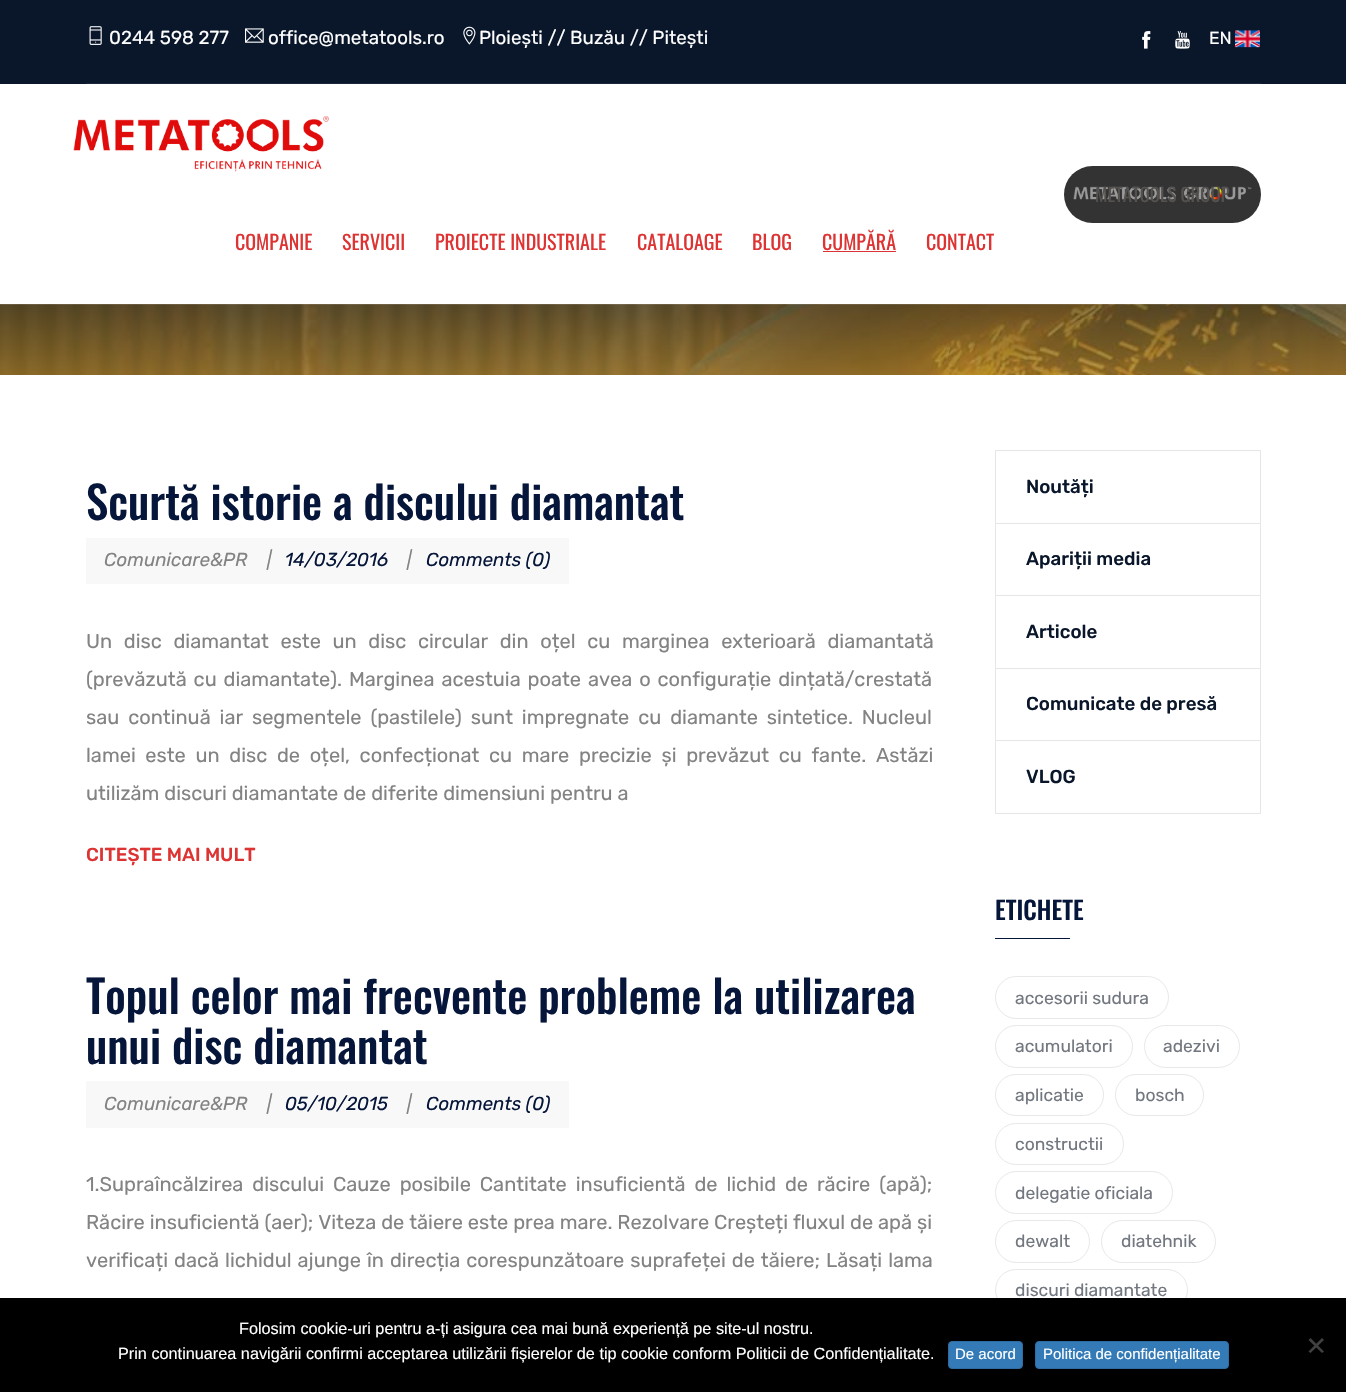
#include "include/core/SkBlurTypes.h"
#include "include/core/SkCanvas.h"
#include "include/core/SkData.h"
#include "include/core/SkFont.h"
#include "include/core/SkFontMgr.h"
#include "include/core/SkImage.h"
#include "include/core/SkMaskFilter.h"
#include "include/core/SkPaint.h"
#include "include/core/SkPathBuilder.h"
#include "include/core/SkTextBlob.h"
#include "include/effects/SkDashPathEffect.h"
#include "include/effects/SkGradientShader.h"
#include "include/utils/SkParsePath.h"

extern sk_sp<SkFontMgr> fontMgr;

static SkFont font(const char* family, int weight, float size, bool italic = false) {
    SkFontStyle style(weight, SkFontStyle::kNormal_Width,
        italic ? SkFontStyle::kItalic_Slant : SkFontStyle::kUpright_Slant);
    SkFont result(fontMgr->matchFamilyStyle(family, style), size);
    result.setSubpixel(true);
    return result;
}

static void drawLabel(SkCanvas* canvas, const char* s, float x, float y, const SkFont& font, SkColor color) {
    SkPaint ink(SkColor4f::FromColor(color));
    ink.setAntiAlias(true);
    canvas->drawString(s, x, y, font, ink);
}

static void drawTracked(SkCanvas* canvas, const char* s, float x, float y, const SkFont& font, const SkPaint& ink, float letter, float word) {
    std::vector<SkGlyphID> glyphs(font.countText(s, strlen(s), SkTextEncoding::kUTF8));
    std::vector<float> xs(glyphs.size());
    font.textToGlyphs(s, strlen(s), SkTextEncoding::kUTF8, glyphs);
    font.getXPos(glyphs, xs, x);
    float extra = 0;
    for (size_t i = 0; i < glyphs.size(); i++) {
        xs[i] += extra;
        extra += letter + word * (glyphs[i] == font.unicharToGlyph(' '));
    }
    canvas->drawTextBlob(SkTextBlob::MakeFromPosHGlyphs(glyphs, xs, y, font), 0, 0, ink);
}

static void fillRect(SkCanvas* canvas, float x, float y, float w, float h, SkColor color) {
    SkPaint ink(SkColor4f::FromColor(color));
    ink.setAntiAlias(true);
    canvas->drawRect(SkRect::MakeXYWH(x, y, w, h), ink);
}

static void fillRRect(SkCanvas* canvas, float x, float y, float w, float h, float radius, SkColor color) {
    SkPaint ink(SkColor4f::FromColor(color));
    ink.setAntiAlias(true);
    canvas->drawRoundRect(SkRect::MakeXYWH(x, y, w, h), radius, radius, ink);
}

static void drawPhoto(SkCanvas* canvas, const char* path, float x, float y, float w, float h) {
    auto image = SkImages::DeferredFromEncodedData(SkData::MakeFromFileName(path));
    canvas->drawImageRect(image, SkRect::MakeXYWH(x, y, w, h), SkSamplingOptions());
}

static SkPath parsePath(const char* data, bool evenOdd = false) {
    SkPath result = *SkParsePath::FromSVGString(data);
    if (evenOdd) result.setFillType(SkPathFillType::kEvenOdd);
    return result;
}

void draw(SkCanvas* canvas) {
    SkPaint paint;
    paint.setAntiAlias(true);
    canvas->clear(0xFFFFFFFF);
    drawPhoto(canvas, "assets/img9.png", 0, 304, 1346, 71);
    fillRect(canvas, 0, 304, 1346, 1, 0x0DFFFFFF);
    fillRect(canvas, 0, 304, 1346, 1, 0x12FFFFFF);
    fillRect(canvas, 0, 0, 1346, 84, 0xFF0A172B);
    drawPhoto(canvas, "assets/img1.png", 89, 26, 13, 19);
    SkFont font1 = font("Rubik", 400, 18.75f);
    drawLabel(canvas, "0244 598 277", 109, 44, font1, 0xFFFFFFFF);
    drawPhoto(canvas, "assets/img2.png", 245, 28, 19, 15);
    drawLabel(canvas, "office@metatools.ro", 268, 44, font1, 0xFFFFFFFF);
    drawPhoto(canvas, "assets/img3.png", 463, 26, 13, 19);
    drawLabel(canvas, "Ploiești // Buzău // Pitești", 479, 44, font1, 0xFFFFFFFF);
    drawPhoto(canvas, "assets/img4.png", 1142, 31, 9, 18);
    drawPhoto(canvas, "assets/img5.png", 1175, 31, 15, 18);
    SkFont font2 = font("Rubik", 400, 17.5f);
    drawLabel(canvas, "EN", 1209, 44, font2, 0xFFFFFFFF);
    drawPhoto(canvas, "assets/img6.png", 1235, 30, 25, 18);
    fillRect(canvas, 86, 83, 1175, 1, 0xFF1B273A);
    drawPhoto(canvas, "assets/img7.png", 73, 116, 256, 56);
    fillRRect(canvas, 1064, 166, 197, 57, 28.5f, 0xFF333333);
    drawPhoto(canvas, "assets/img8.png", 1073, 186, 179, 14);
    SkFont font3 = font("Oswald", 400, 18.75f);
    drawLabel(canvas, "METATOOLS GROUP", 1095, 202, font3, 0xFF54514E);
    SkFont font4 = font("Oswald", 400, 20);
    drawLabel(canvas, "COMPANIE", 235, 250, font4, 0xFFDD3333);
    drawLabel(canvas, "SERVICII", 342, 250, font4, 0xFFDD3333);
    drawLabel(canvas, "PROIECTE INDUSTRIALE", 435, 250, font4, 0xFFDD3333);
    drawLabel(canvas, "CATALOAGE", 637, 250, font4, 0xFFDD3333);
    drawLabel(canvas, "BLOG", 752, 250, font4, 0xFFDD3333);
    drawLabel(canvas, "CUMPĂRĂ", 822, 250, font4, 0xFFDD3333);
    fillRect(canvas, 823, 251, 73, 1, 0xFFDD3333);
    drawLabel(canvas, "CONTACT", 926, 250, font4, 0xFFDD3333);
    SkFont font5 = font("Oswald", 500, 45);
    drawLabel(canvas, "Scurtă istorie a discului diamantat", 86, 520, font5, 0xFF06163A);
    fillRect(canvas, 86, 538, 483, 46, 0xFFF8F8F8);
    SkFont font6 = font("Rubik", 300, 18.75f, true);
    drawLabel(canvas, "Comunicare&PR", 104, 566, font6, 0xFF838383);
    drawLabel(canvas, "|", 267, 566, font6, 0xFF838383);
    drawLabel(canvas, "14/03/2016", 285, 566, font6, 0xFF06163A);
    drawLabel(canvas, "|", 407, 566, font6, 0xFF838383);
    drawLabel(canvas, "Comments (0)", 426, 566, font6, 0xFF06163A);
    SkFont font7 = font("Rubik", 400, 20);
    paint.setColor(0xFF838383);
    drawTracked(canvas, "Un disc diamantat este un disc circular din oțel cu marginea exterioară diamantată", 86, 648, font7, paint, 0, 6.75f);
    drawTracked(canvas, "(prevăzută cu diamantate). Marginea acestuia poate avea o configurație dințată/crestată", 86, 686, font7, paint, 0, 2);
    drawTracked(canvas, "sau continuă iar segmentele (pastilele) sunt impregnate cu diamante sintetice. Nucleul", 86, 724, font7, paint, 0, 4);
    drawTracked(canvas, "lamei este un disc de oțel, confecționat cu mare precizie și prevăzut cu fante. Astăzi", 86, 762, font7, paint, 0, 4.75f);
    drawLabel(canvas, "utilizăm discuri diamantate de diferite dimensiuni pentru a", 86, 800, font7, 0xFF838383);
    SkFont font8 = font("Rubik", 500, 18.75f);
    drawLabel(canvas, "CITEȘTE MAI MULT", 86, 861, font8, 0xFFDD3333);
    drawLabel(canvas, "Topul celor mai frecvente probleme la utilizarea", 86, 1014, font5, 0xFF06163A);
    drawLabel(canvas, "unui disc diamantat", 86, 1064, font5, 0xFF06163A);
    fillRect(canvas, 86, 1081, 483, 47, 0xFFF8F8F8);
    drawLabel(canvas, "Comunicare&PR", 104, 1110, font6, 0xFF838383);
    drawLabel(canvas, "|", 267, 1110, font6, 0xFF838383);
    drawLabel(canvas, "05/10/2015", 285, 1110, font6, 0xFF06163A);
    drawLabel(canvas, "|", 407, 1110, font6, 0xFF838383);
    drawLabel(canvas, "Comments (0)", 426, 1110, font6, 0xFF06163A);
    drawTracked(canvas, "1.Supraîncălzirea discului Cauze posibile Cantitate insuficientă de lichid de răcire (apă);", 86, 1191, font7, paint, 0, 4);
    drawLabel(canvas, "Răcire insuficientă (aer); Viteza de tăiere este prea mare. Rezolvare Creșteți fluxul de apă și", 86, 1229, font7, 0xFF838383);
    drawTracked(canvas, "verificați dacă lichidul ajunge în direcția corespunzătoare suprafeței de tăiere; Lăsați lama", 86, 1267, font7, paint, 0, 1.1f);
    fillRect(canvas, 995, 450, 266, 1, 0xFFE6E6E6);
    fillRect(canvas, 1260, 450, 1, 364, 0xFFE6E6E6);
    fillRect(canvas, 995, 450, 1, 364, 0xFFE6E6E6);
    fillRect(canvas, 996, 523, 264, 1, 0xFFE6E6E6);
    drawLabel(canvas, "Noutăți", 1026, 493, font8, 0xFF0A172B);
    fillRect(canvas, 996, 595, 264, 1, 0xFFE6E6E6);
    drawLabel(canvas, "Apariții media", 1026, 565, font8, 0xFF0A172B);
    fillRect(canvas, 996, 668, 264, 1, 0xFFE6E6E6);
    drawLabel(canvas, "Articole", 1026, 638, font8, 0xFF0A172B);
    fillRect(canvas, 996, 740, 264, 1, 0xFFE6E6E6);
    drawLabel(canvas, "Comunicate de presă", 1026, 710, font8, 0xFF0A172B);
    fillRect(canvas, 996, 813, 264, 1, 0xFFE6E6E6);
    drawLabel(canvas, "VLOG", 1026, 783, font8, 0xFF0A172B);
    SkFont font9 = font("Oswald", 500, 25);
    drawLabel(canvas, "ETICHETE", 995, 920, font9, 0xFF06163A);
    fillRect(canvas, 995, 938, 75, 1, 0xFF06163A);
    paint.setStroke(true);
    paint.setStrokeWidth(1);
    paint.setColor(0xFFE8E8E8);
    canvas->drawRoundRect(SkRect::MakeXYWH(995.5f, 976.5f, 173, 42), 21, 21, paint);
    drawLabel(canvas, "accesorii sudura", 1015, 1004, font2, 0xFF727780);
    canvas->drawRoundRect(SkRect::MakeXYWH(995.5f, 1025.5f, 137, 42), 21, 21, paint);
    drawLabel(canvas, "acumulatori", 1015, 1052, font2, 0xFF727780);
    canvas->drawRoundRect(SkRect::MakeXYWH(1144.5f, 1025.5f, 95, 42), 21, 21, paint);
    drawLabel(canvas, "adezivi", 1163, 1052, font2, 0xFF727780);
    canvas->drawRoundRect(SkRect::MakeXYWH(995.5f, 1074.5f, 108, 41), 20.5f, 20.5f, paint);
    drawLabel(canvas, "aplicatie", 1015, 1101, font2, 0xFF727780);
    canvas->drawRoundRect(SkRect::MakeXYWH(1115.5f, 1074.5f, 88, 41), 20.5f, 20.5f, paint);
    drawLabel(canvas, "bosch", 1135, 1101, font2, 0xFF727780);
    canvas->drawRoundRect(SkRect::MakeXYWH(995.5f, 1123.5f, 128, 41), 20.5f, 20.5f, paint);
    drawLabel(canvas, "constructii", 1015, 1150, font2, 0xFF727780);
    canvas->drawRoundRect(SkRect::MakeXYWH(995.5f, 1171.5f, 177, 42), 21, 21, paint);
    drawLabel(canvas, "delegatie oficiala", 1015, 1199, font2, 0xFF727780);
    canvas->drawRoundRect(SkRect::MakeXYWH(995.5f, 1220.5f, 94, 42), 21, 21, paint);
    drawLabel(canvas, "dewalt", 1015, 1247, font2, 0xFF727780);
    canvas->drawRoundRect(SkRect::MakeXYWH(1101.5f, 1220.5f, 114, 42), 21, 21, paint);
    drawLabel(canvas, "diatehnik", 1121, 1247, font2, 0xFF727780);
    canvas->drawRoundRect(SkRect::MakeXYWH(995.5f, 1269.5f, 192, 41), 20.5f, 20.5f, paint);
    drawLabel(canvas, "discuri diamantate", 1015, 1296, font2, 0xFF727780);
    fillRect(canvas, 0, 1298, 1346, 94, 0xFF000000);
    SkFont font10 = font("Liberation Sans", 400, 16.25f);
    drawLabel(canvas, "Folosim cookie-uri pentru a-ți asigura cea mai bună experiență pe site-ul nostru.", 239, 1334, font10, 0xFFFFFFFF);
    drawLabel(canvas, "Prin continuarea navigării confirmi acceptarea utilizării fișierelor de tip cookie conform Politicii de Confidențialitate.", 118, 1359, font10, 0xFFFFFFFF);
    paint.setStroke(false);
    paint.setColor(0xFF404040);
    canvas->drawPath(parsePath("M1322 1338L1324 1340L1310.5 1353L1308.5 1351.5Z"), paint);
    canvas->drawPath(parsePath("M1308.5 1340L1310.5 1338L1324 1351.5L1322 1353Z"), paint);
    paint.setColor(0xFF337AB7);
    canvas->drawRoundRect(SkRect::MakeXYWH(948.5f, 1341.5f, 74, 27), 3.5f, 3.5f, paint);
    paint.setStroke(true);
    paint.setColor(0xFF2E6DA4);
    canvas->drawRoundRect(SkRect::MakeXYWH(948.5f, 1341.5f, 74, 27), 3.5f, 3.5f, paint);
    SkFont font11 = font("Liberation Sans", 400, 15);
    drawLabel(canvas, "De acord", 955, 1359, font11, 0xFFFFFFFF);
    paint.setStroke(false);
    paint.setColor(0xFF337AB7);
    canvas->drawRoundRect(SkRect::MakeXYWH(1035.5f, 1341.5f, 193, 27), 3.5f, 3.5f, paint);
    paint.setStroke(true);
    paint.setColor(0xFF2E6DA4);
    canvas->drawRoundRect(SkRect::MakeXYWH(1035.5f, 1341.5f, 193, 27), 3.5f, 3.5f, paint);
    drawLabel(canvas, "Politica de confidențialitate", 1043, 1359, font11, 0xFFFFFFFF);
}
